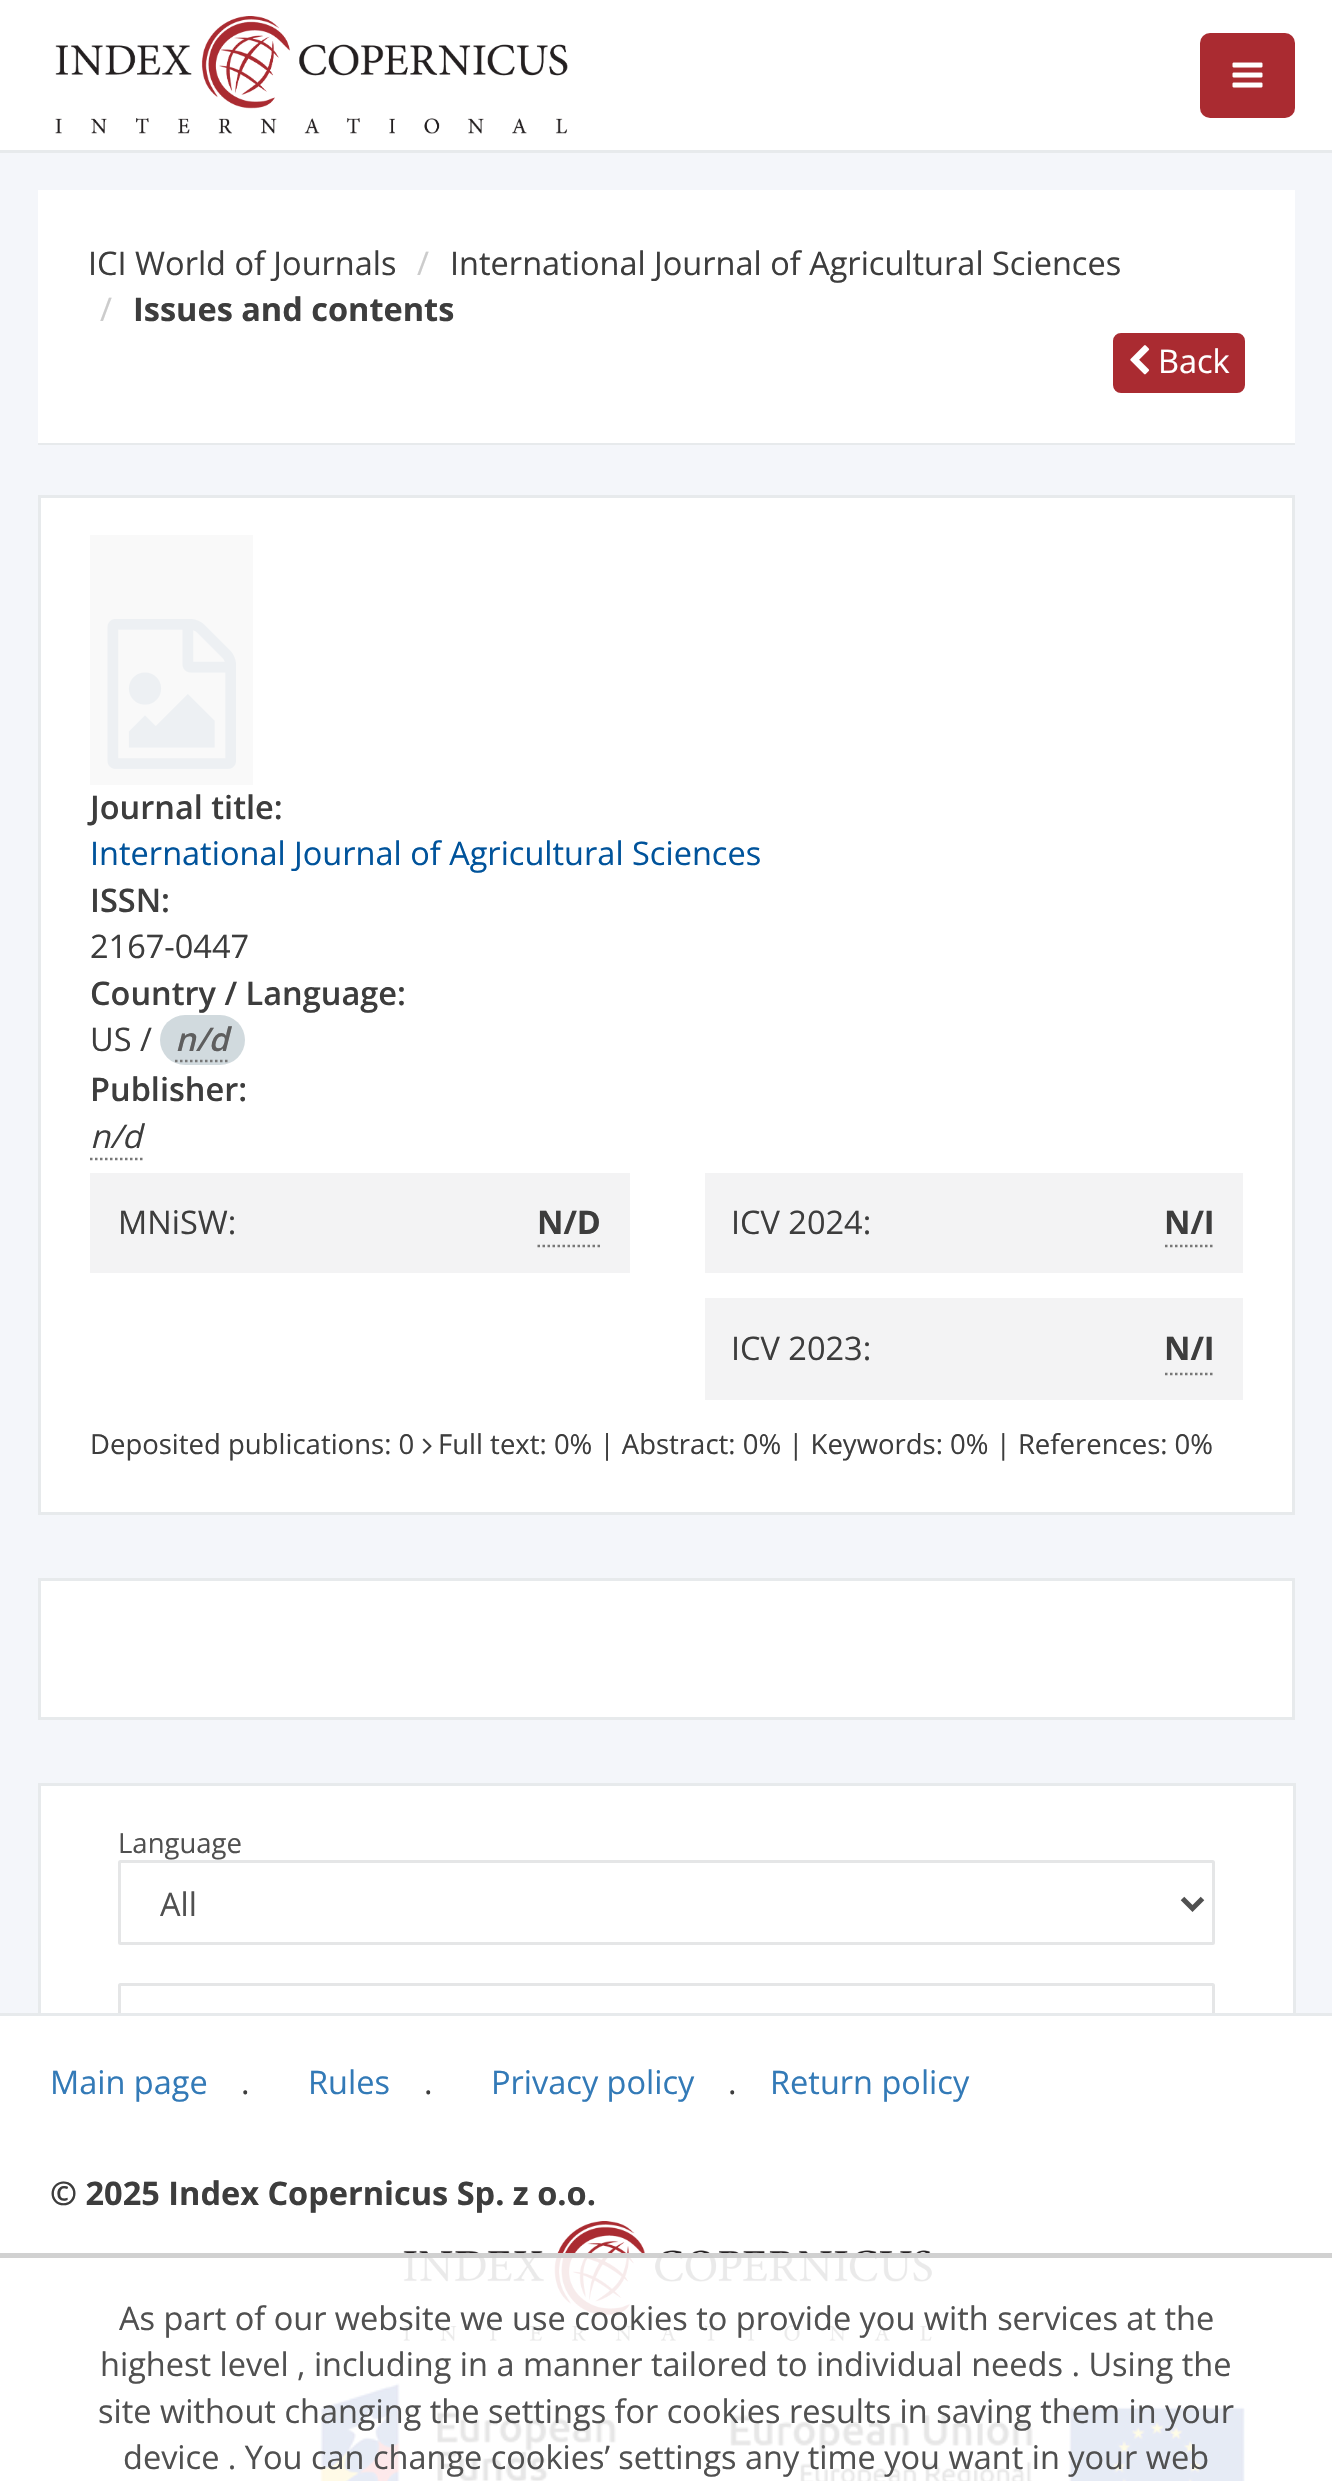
#include "include/core/SkBlurTypes.h"
#include "include/core/SkCanvas.h"
#include "include/core/SkData.h"
#include "include/core/SkFont.h"
#include "include/core/SkFontMgr.h"
#include "include/core/SkImage.h"
#include "include/core/SkMaskFilter.h"
#include "include/core/SkPaint.h"
#include "include/core/SkPathBuilder.h"
#include "include/core/SkTextBlob.h"
#include "include/effects/SkDashPathEffect.h"
#include "include/effects/SkGradientShader.h"
#include "include/utils/SkParsePath.h"

extern sk_sp<SkFontMgr> fontMgr;

static SkFont font(const char* family, int weight, float size, bool italic = false) {
    SkFontStyle style(weight, SkFontStyle::kNormal_Width,
        italic ? SkFontStyle::kItalic_Slant : SkFontStyle::kUpright_Slant);
    SkFont result(fontMgr->matchFamilyStyle(family, style), size);
    result.setSubpixel(true);
    return result;
}

static void drawLabel(SkCanvas* canvas, const char* s, float x, float y, const SkFont& font, SkColor color) {
    SkPaint ink(SkColor4f::FromColor(color));
    ink.setAntiAlias(true);
    canvas->drawString(s, x, y, font, ink);
}

static void fillRect(SkCanvas* canvas, float x, float y, float w, float h, SkColor color) {
    SkPaint ink(SkColor4f::FromColor(color));
    ink.setAntiAlias(true);
    canvas->drawRect(SkRect::MakeXYWH(x, y, w, h), ink);
}

static void fillRRect(SkCanvas* canvas, float x, float y, float w, float h, float radius, SkColor color) {
    SkPaint ink(SkColor4f::FromColor(color));
    ink.setAntiAlias(true);
    canvas->drawRoundRect(SkRect::MakeXYWH(x, y, w, h), radius, radius, ink);
}

static void drawPhoto(SkCanvas* canvas, const char* path, float x, float y, float w, float h) {
    auto image = SkImages::DeferredFromEncodedData(SkData::MakeFromFileName(path));
    canvas->drawImageRect(image, SkRect::MakeXYWH(x, y, w, h), SkSamplingOptions());
}

static SkPath parsePath(const char* data, bool evenOdd = false) {
    SkPath result = *SkParsePath::FromSVGString(data);
    if (evenOdd) result.setFillType(SkPathFillType::kEvenOdd);
    return result;
}

void draw(SkCanvas* canvas) {
    SkPaint paint;
    paint.setAntiAlias(true);
    canvas->clear(0xFFF4F6FA);
    fillRect(canvas, 0, 0, 1332, 150, 0xFFFFFFFF);
    fillRect(canvas, 0, 150, 1332, 3, 0xFFE7EAEC);
    drawPhoto(canvas, "assets/img1.png", 55, 16, 513, 118);
    fillRRect(canvas, 1200, 33, 95, 85, 10, 0xFFAA2B31);
    drawPhoto(canvas, "assets/img2.png", 1232, 62, 31, 26);
    fillRect(canvas, 38, 190, 1257, 253, 0xFFFFFFFF);
    fillRect(canvas, 38, 443, 1257, 2, 0xFFE7EAEC);
    SkFont font1 = font("Open Sans", 400, 32.5f);
    drawLabel(canvas, "ICI World of Journals", 88, 275, font1, 0xFF3D3D3D);
    drawLabel(canvas, "/", 417, 275, font1, 0xFFCCCCCC);
    drawLabel(canvas, "International Journal of Agricultural Sciences", 450, 275, font1, 0xFF3D3D3D);
    drawLabel(canvas, "/", 100, 321, font1, 0xFFCCCCCC);
    SkFont font2 = font("Open Sans", 700, 32.5f);
    drawLabel(canvas, "Issues and contents", 133, 321, font2, 0xFF3D3D3D);
    paint.setColor(0xFFAA2B31);
    canvas->drawRoundRect(SkRect::MakeXYWH(1114.5f, 334.5f, 129, 57), 6.5f, 6.5f, paint);
    paint.setStroke(true);
    paint.setStrokeWidth(3);
    canvas->drawRoundRect(SkRect::MakeXYWH(1114.5f, 334.5f, 129, 57), 6.5f, 6.5f, paint);
    drawPhoto(canvas, "assets/img3.png", 1130, 345, 20, 30);
    drawLabel(canvas, "Back", 1158, 373, font1, 0xFFFFFFFF);
    paint.setStroke(false);
    paint.setColor(0xFFFFFFFF);
    canvas->drawRect(SkRect::MakeXYWH(39.5f, 496.5f, 1254, 1017), paint);
    paint.setStroke(true);
    paint.setColor(0xFFE7EAEC);
    canvas->drawRect(SkRect::MakeXYWH(39.5f, 496.5f, 1254, 1017), paint);
    fillRect(canvas, 90, 535, 163, 250, 0xFFF9F9F9);
    drawPhoto(canvas, "assets/img4.png", 107, 619, 129, 150);
    SkFont font3 = font("Open Sans", 600, 32.5f);
    drawLabel(canvas, "Journal title:", 90, 819, font3, 0xFF3D3D3D);
    drawLabel(canvas, "International Journal of Agricultural Sciences", 90, 865, font1, 0xFF00539B);
    drawLabel(canvas, "ISSN:", 90, 912, font3, 0xFF3D3D3D);
    drawLabel(canvas, "2167-0447", 90, 958, font1, 0xFF3D3D3D);
    drawLabel(canvas, "Country / Language:", 90, 1005, font3, 0xFF3D3D3D);
    drawLabel(canvas, "US /", 90, 1051, font1, 0xFF3D3D3D);
    fillRRect(canvas, 160, 1015, 85, 50, 25, 0xFFD1DADE);
    SkFont font4 = font("Open Sans", 600, 32.5f, true);
    drawLabel(canvas, "n/d", 175, 1051, font4, 0xFF5E5E5E);
    paint.setStrokeWidth(2.5f);
    paint.setColor(0xFF777777);
    paint.setPathEffect(SkDashPathEffect::Make({{2.5f, 2.5f}}, 0));
    canvas->drawPath(parsePath("M175 1061H230"), paint);
    paint.setPathEffect(nullptr);
    drawLabel(canvas, "Publisher:", 90, 1101, font3, 0xFF3D3D3D);
    SkFont font5 = font("Open Sans", 400, 32.5f, true);
    drawLabel(canvas, "n/d", 90, 1148, font5, 0xFF3D3D3D);
    paint.setPathEffect(SkDashPathEffect::Make({{2.5f, 2.5f}}, 0));
    canvas->drawPath(parsePath("M90 1159H142.5"), paint);
    paint.setPathEffect(nullptr);
    fillRect(canvas, 90, 1173, 540, 100, 0xFFF3F3F4);
    drawLabel(canvas, "MNiSW:", 118, 1234, font1, 0xFF3D3D3D);
    paint.setPathEffect(SkDashPathEffect::Make({{2.5f, 2.5f}}, 0));
    canvas->drawPath(parsePath("M537.5 1246H602.5"), paint);
    paint.setPathEffect(nullptr);
    drawLabel(canvas, "N/D", 537, 1234, font2, 0xFF3D3D3D);
    fillRect(canvas, 705, 1173, 538, 100, 0xFFF3F3F4);
    drawLabel(canvas, "ICV 2024:", 731, 1234, font1, 0xFF3D3D3D);
    paint.setPathEffect(SkDashPathEffect::Make({{2.5f, 2.5f}}, 0));
    canvas->drawPath(parsePath("M1165 1246H1215"), paint);
    paint.setPathEffect(nullptr);
    drawLabel(canvas, "N/I", 1164, 1234, font2, 0xFF3D3D3D);
    fillRect(canvas, 705, 1298, 538, 102, 0xFFF3F3F4);
    drawLabel(canvas, "ICV 2023:", 731, 1360, font1, 0xFF3D3D3D);
    paint.setPathEffect(SkDashPathEffect::Make({{2.5f, 2.5f}}, 0));
    canvas->drawPath(parsePath("M1165 1374H1215"), paint);
    paint.setPathEffect(nullptr);
    drawLabel(canvas, "N/I", 1164, 1360, font2, 0xFF3D3D3D);
    SkFont font6 = font("Open Sans", 400, 27.5f);
    drawLabel(canvas, "Deposited publications: 0", 90, 1454, font6, 0xFF3D3D3D);
    drawPhoto(canvas, "assets/img5.png", 422, 1438, 10, 16);
    drawLabel(canvas, "Full text: 0% | Abstract: 0% | Keywords: 0% | References: 0%", 438, 1454, font6, 0xFF3D3D3D);
    paint.setStroke(false);
    paint.setColor(0xFFFFFFFF);
    canvas->drawRect(SkRect::MakeXYWH(39.5f, 1579.5f, 1254, 139), paint);
    paint.setStroke(true);
    paint.setStrokeWidth(3);
    paint.setColor(0xFFE7EAEC);
    canvas->drawRect(SkRect::MakeXYWH(39.5f, 1579.5f, 1254, 139), paint);
    fillRect(canvas, 41, 1786, 1252, 227, 0xFFFFFFFF);
    fillRect(canvas, 38, 1783, 1257, 3, 0xFFE7EAEC);
    fillRect(canvas, 1293, 1783, 3, 230, 0xFFE7EAEC);
    fillRect(canvas, 38, 1783, 3, 230, 0xFFE7EAEC);
    drawLabel(canvas, "Language", 118, 1853, font6, 0xFF505050);
    paint.setColor(0xFFE5E6E7);
    canvas->drawRoundRect(SkRect::MakeXYWH(119.5f, 1861.5f, 1094, 82), 1, 1, paint);
    paint.setStrokeWidth(5);
    paint.setColor(0xFF505050);
    canvas->drawPath(parsePath("M1182.5 1898.5L1192.5 1908.5L1202.5 1898.5"), paint);
    drawLabel(canvas, "All", 160, 1916, font1, 0xFF505050);
    paint.setStrokeWidth(3);
    paint.setColor(0xFFE5E6E7);
    canvas->drawRoundRect(SkRect::MakeXYWH(119.5f, 1984.5f, 1094, 82), 1, 1, paint);
    fillRect(canvas, 0, 2016, 1332, 465, 0xFFFFFFFF);
    fillRect(canvas, 0, 2013, 1332, 3, 0xFFE7EAEC);
    drawLabel(canvas, "Main page", 50, 2094, font1, 0xFF337AB7);
    drawLabel(canvas, ".", 241, 2094, font1, 0xFF3D3D3D);
    drawLabel(canvas, "Rules", 308, 2094, font1, 0xFF337AB7);
    drawLabel(canvas, ".", 424, 2094, font1, 0xFF3D3D3D);
    drawLabel(canvas, "Privacy policy", 491, 2094, font1, 0xFF337AB7);
    drawLabel(canvas, ".", 728, 2094, font1, 0xFF3D3D3D);
    drawLabel(canvas, "Return policy", 770, 2094, font1, 0xFF337AB7);
    drawLabel(canvas, "© 2025 Index Copernicus Sp. z o.o.", 50, 2205, font2, 0xFF3D3D3D);
    drawPhoto(canvas, "assets/img6.png", 403, 2221, 529, 121);
    drawPhoto(canvas, "assets/img7.png", 320, 2383, 925, 98);
    fillRect(canvas, 320, 2253, 925, 228, 0xE6FFFFFF);
    fillRect(canvas, 0, 2253, 1332, 5, 0xE6CCCCCC);
    drawLabel(canvas, "As part of our website we use cookies to provide you with services at the", 119, 2330, font1, 0xFF505050);
    drawLabel(canvas, "highest level , including in a manner tailored to individual needs . Using the", 100, 2376, font1, 0xFF505050);
    drawLabel(canvas, "site without changing the settings for cookies results in saving them in your", 98, 2423, font1, 0xFF505050);
    drawLabel(canvas, "device . You can change cookies’ settings any time you want in your web", 123, 2469, font1, 0xFF505050);
}
